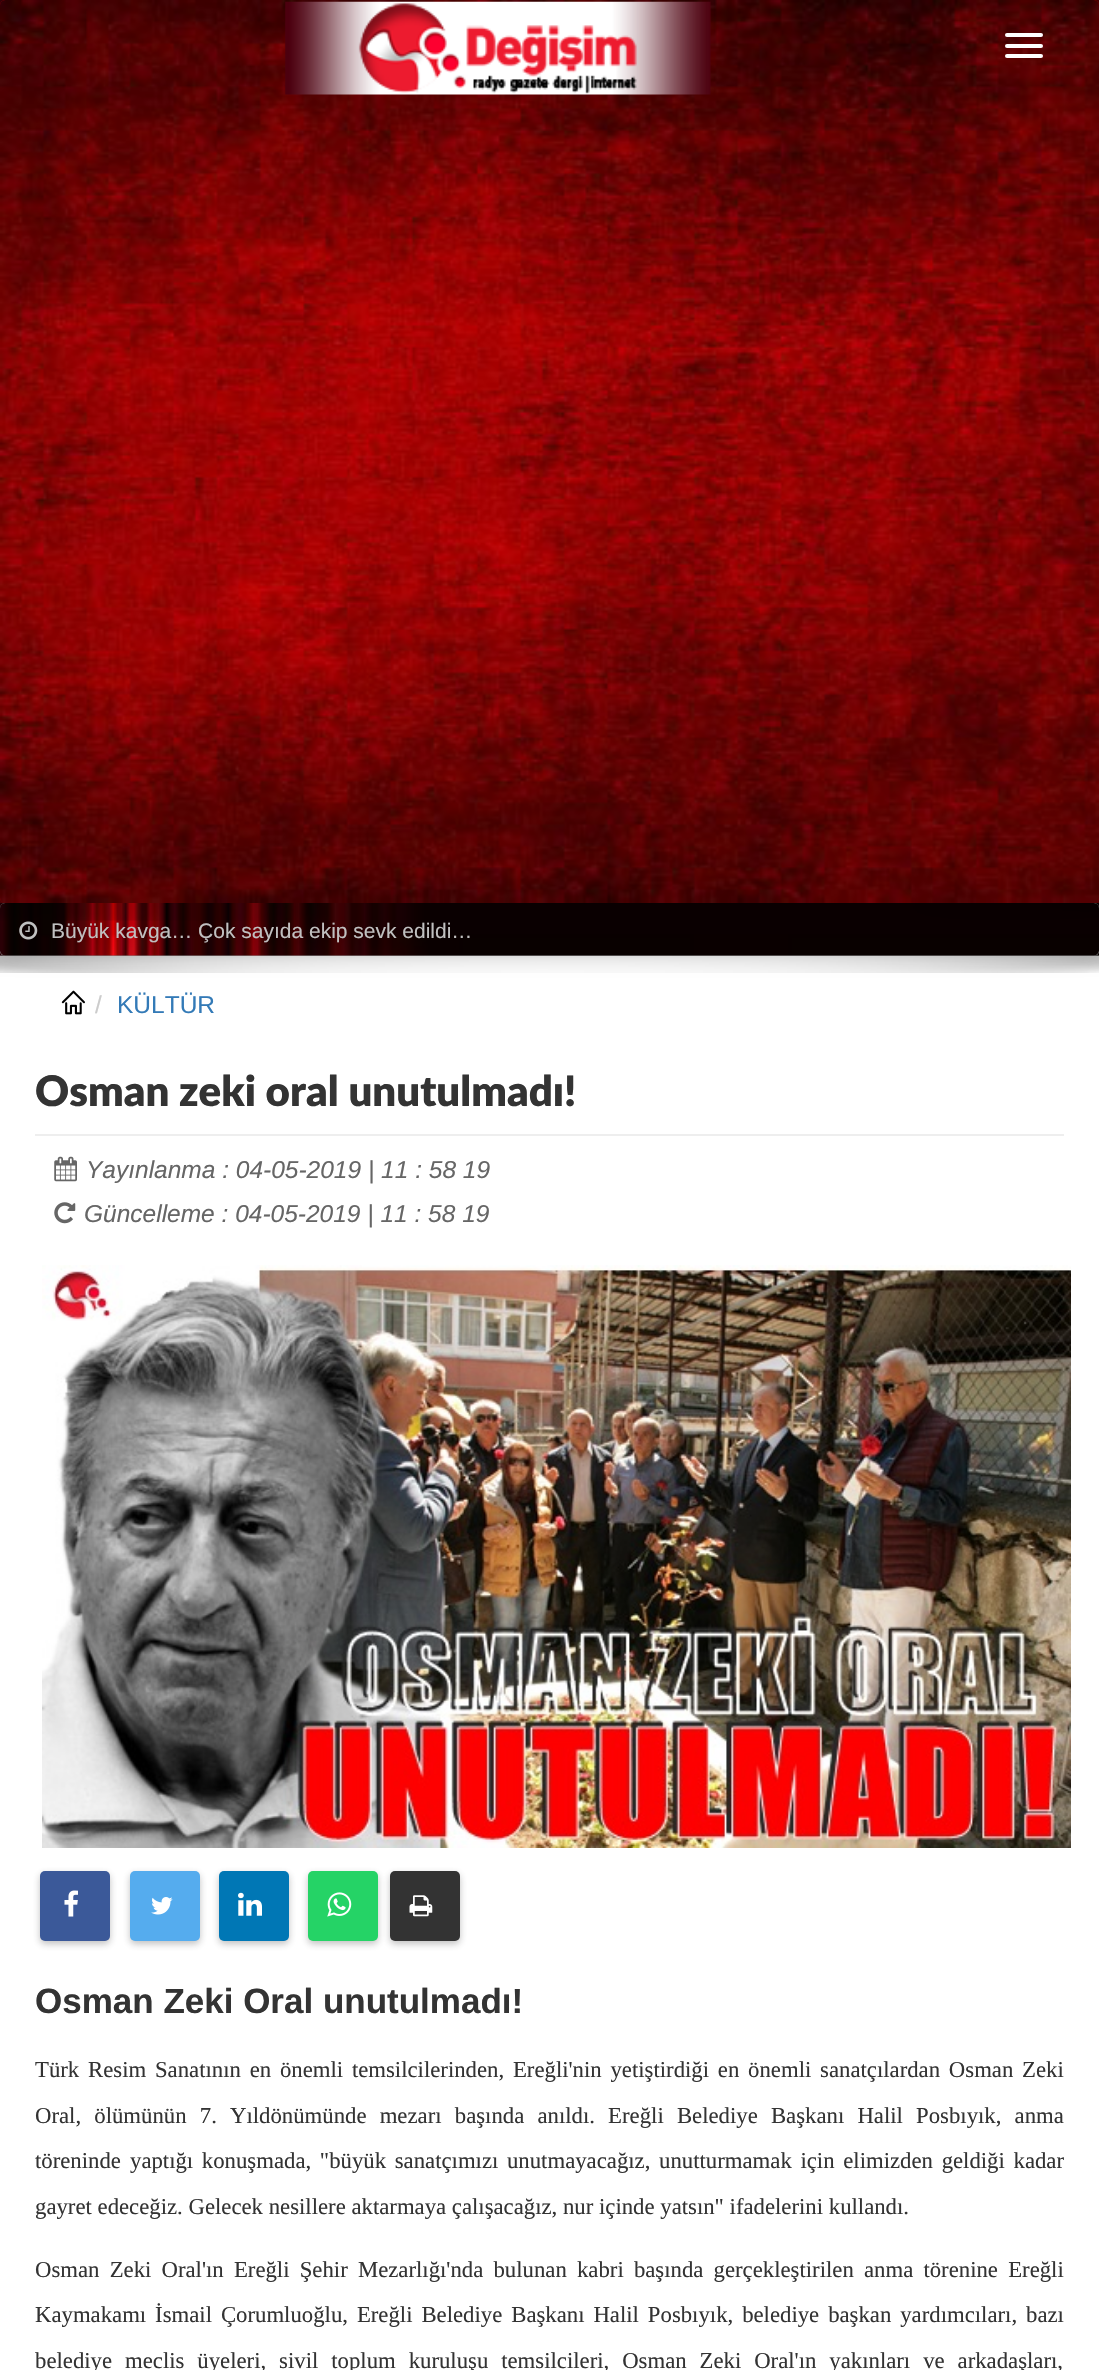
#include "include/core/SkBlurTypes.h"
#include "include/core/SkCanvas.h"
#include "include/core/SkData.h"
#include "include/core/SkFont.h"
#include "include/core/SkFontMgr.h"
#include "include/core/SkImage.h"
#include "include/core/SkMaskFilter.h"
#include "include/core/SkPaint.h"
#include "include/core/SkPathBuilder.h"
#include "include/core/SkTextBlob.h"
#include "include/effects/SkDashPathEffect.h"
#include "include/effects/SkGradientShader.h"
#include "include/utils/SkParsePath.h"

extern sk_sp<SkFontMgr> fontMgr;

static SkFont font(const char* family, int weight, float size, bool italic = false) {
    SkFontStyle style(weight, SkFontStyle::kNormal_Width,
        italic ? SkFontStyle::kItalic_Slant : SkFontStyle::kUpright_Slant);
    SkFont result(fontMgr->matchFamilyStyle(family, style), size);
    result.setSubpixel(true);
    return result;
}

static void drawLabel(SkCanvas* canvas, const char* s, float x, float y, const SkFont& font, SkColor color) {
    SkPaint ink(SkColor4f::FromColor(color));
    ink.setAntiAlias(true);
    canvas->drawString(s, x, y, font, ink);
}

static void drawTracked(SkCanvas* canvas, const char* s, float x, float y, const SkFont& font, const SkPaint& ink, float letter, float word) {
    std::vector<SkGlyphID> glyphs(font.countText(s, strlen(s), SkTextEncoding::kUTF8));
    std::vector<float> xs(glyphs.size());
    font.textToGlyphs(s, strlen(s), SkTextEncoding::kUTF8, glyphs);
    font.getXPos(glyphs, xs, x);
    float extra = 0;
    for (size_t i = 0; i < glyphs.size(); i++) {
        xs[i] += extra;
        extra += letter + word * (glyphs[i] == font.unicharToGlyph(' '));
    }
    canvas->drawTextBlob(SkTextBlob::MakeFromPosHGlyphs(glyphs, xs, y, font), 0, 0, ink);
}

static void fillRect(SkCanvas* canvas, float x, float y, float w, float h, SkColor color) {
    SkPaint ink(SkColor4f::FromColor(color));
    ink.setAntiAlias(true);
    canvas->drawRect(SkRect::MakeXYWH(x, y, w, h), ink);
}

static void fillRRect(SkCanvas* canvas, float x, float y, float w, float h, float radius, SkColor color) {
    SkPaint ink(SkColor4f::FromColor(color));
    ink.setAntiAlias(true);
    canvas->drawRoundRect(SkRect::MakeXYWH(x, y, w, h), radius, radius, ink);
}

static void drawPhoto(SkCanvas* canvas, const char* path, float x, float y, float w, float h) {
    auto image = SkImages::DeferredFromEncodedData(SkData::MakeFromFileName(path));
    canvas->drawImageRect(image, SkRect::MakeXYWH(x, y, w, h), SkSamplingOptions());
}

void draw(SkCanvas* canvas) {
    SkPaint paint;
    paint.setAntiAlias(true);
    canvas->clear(0xFFFFFFFF);
    drawPhoto(canvas, "assets/img1.png", 0, 0, 1099, 903);
    paint.setColor(0x33000000);
    paint.setMaskFilter(SkMaskFilter::MakeBlur(kNormal_SkBlurStyle, 9));
    canvas->drawRect(SkRect::MakeXYWH(0, 903, 1099, 53), paint);
    paint.setMaskFilter(nullptr);
    fillRRect(canvas, 0, 0, 1099, 903, 5, 0xFF800000);
    drawPhoto(canvas, "assets/img2.png", 0, 0, 1099, 903);
    drawPhoto(canvas, "assets/img3.png", 285, 1, 426, 94);
    fillRRect(canvas, 1005, 33, 38, 4, 2, 0xFFFFFFFF);
    fillRRect(canvas, 1005, 44, 38, 4, 2, 0xFFFFFFFF);
    fillRRect(canvas, 1005, 54, 38, 4, 2, 0xFFFFFFFF);
    fillRect(canvas, 0, 955, 1099, 1, 0xFF999999);
    drawPhoto(canvas, "assets/img5.png", 0, 903, 1099, 53);
    fillRRect(canvas, 0, 903, 1099, 53, 5, 0xFF999999);
    drawPhoto(canvas, "assets/img6.png", 0, 903, 1099, 53);
    drawPhoto(canvas, "assets/img4.png", 0, 903, 1099, 18);
    drawPhoto(canvas, "assets/img7.png", 19, 921, 19, 19);
    SkFont font1 = font("Liberation Sans", 400, 21);
    drawLabel(canvas, "Büyük kavga… Çok sayıda ekip sevk edildi…", 51, 938, font1, 0xFFC0C0C0);
    drawPhoto(canvas, "assets/img8.png", 0, 955, 1099, 18);
    drawPhoto(canvas, "assets/img9.png", 61, 990, 24, 25);
    SkFont font2 = font("Liberation Sans", 400, 24.5f);
    drawLabel(canvas, "/", 95, 1013, font2, 0xFFCCCCCC);
    drawLabel(canvas, "KÜLTÜR", 117, 1013, font2, 0xFF337AB7);
    fillRect(canvas, 35, 1134, 1029, 2, 0xFFEEEEEE);
    SkFont font3 = font("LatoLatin", 900, 42);
    drawLabel(canvas, "Osman zeki oral unutulmadı!", 35, 1106, font3, 0xFF333333);
    drawPhoto(canvas, "assets/img10.png", 54, 1156, 23, 26);
    SkFont font4 = font("Liberation Sans", 400, 24.5f, true);
    drawLabel(canvas, "Yayınlanma : 04-05-2019 | 11 : 58 19", 86, 1178, font4, 0xFF666666);
    drawPhoto(canvas, "assets/img11.png", 54, 1202, 22, 22);
    drawLabel(canvas, "Güncelleme : 04-05-2019 | 11 : 58 19", 84, 1222, font4, 0xFF666666);
    drawPhoto(canvas, "assets/img12.png", 42, 1265, 1029, 583);
    paint.setColor(0x4D323232);
    paint.setMaskFilter(SkMaskFilter::MakeBlur(kNormal_SkBlurStyle, 3.5f));
    canvas->drawRoundRect(SkRect::MakeXYWH(40, 1874, 70, 70), 5, 5, paint);
    paint.setMaskFilter(nullptr);
    fillRRect(canvas, 40, 1871, 70, 70, 5, 0xFF3B5999);
    drawPhoto(canvas, "assets/img13.png", 64, 1890, 14, 27);
    paint.setMaskFilter(SkMaskFilter::MakeBlur(kNormal_SkBlurStyle, 3.5f));
    canvas->drawRoundRect(SkRect::MakeXYWH(130, 1874, 70, 70), 5, 5, paint);
    paint.setMaskFilter(nullptr);
    fillRRect(canvas, 130, 1871, 70, 70, 5, 0xFF55ACEE);
    drawPhoto(canvas, "assets/img14.png", 151, 1897, 22, 18);
    paint.setMaskFilter(SkMaskFilter::MakeBlur(kNormal_SkBlurStyle, 3.5f));
    canvas->drawRoundRect(SkRect::MakeXYWH(219, 1874, 70, 70), 5, 5, paint);
    paint.setMaskFilter(nullptr);
    fillRRect(canvas, 219, 1871, 70, 70, 5, 0xFF0077B5);
    drawPhoto(canvas, "assets/img15.png", 238, 1892, 24, 24);
    paint.setMaskFilter(SkMaskFilter::MakeBlur(kNormal_SkBlurStyle, 3.5f));
    canvas->drawRoundRect(SkRect::MakeXYWH(308, 1874, 70, 70), 5, 5, paint);
    paint.setMaskFilter(nullptr);
    fillRRect(canvas, 308, 1871, 70, 70, 5, 0xFF25D366);
    drawPhoto(canvas, "assets/img16.png", 327, 1892, 25, 25);
    paint.setMaskFilter(SkMaskFilter::MakeBlur(kNormal_SkBlurStyle, 3.5f));
    canvas->drawRoundRect(SkRect::MakeXYWH(390, 1874, 70, 70), 5, 5, paint);
    paint.setMaskFilter(nullptr);
    fillRRect(canvas, 390, 1871, 70, 70, 5, 0xFF333333);
    drawPhoto(canvas, "assets/img17.png", 409, 1895, 24, 22);
    SkFont font5 = font("Liberation Sans", 700, 35);
    drawLabel(canvas, "Osman Zeki Oral unutulmadı!", 35, 2013, font5, 0xFF333333);
    SkFont font6 = font("Liberation Serif", 400, 22.75f);
    paint.setColor(0xFF333333);
    drawTracked(canvas, "Türk Resim Sanatının en önemli temsilcilerinden, Ereğli'nin yetiştirdiği en önemli sanatçılardan Osman Zeki", 35, 2077, font6, paint, 0, 3.1f);
    drawTracked(canvas, "Oral, ölümünün 7. Yıldönümünde mezarı başında anıldı. Ereğli Belediye Başkanı Halil Posbıyık, anma", 35, 2123, font6, paint, 0, 7.5f);
    drawLabel(canvas, "töreninde", 35, 2168, font6, 0xFF333333);
    drawTracked(canvas, "yaptığı konuşmada, \"büyük sanatçımızı unutmayacağız, unutturmamak için elimizden geldiği kadar", 130, 2168, font6, paint, 0, 3);
    drawLabel(canvas, "gayret edeceğiz. Gelecek nesillere aktarmaya çalışacağız, nur içinde yatsın\" ifadelerini kullandı.", 35, 2214, font6, 0xFF333333);
    drawTracked(canvas, "Osman Zeki Oral'ın Ereğli Şehir Mezarlığı'nda bulunan kabri başında gerçekleştirilen anma törenine Ereğli", 35, 2277, font6, paint, 0, 4.5f);
    drawTracked(canvas, "Kaymakamı İsmail Çorumluoğlu, Ereğli Belediye Başkanı Halil Posbıyık, belediye başkan yardımcıları, bazı", 35, 2322, font6, paint, 0, 3.25f);
    drawTracked(canvas, "belediye meclis üyeleri, sivil toplum kuruluşu temsilcileri, Osman Zeki Oral'ın yakınları ve arkadaşları,", 35, 2368, font6, paint, 0, 7.25f);
}
